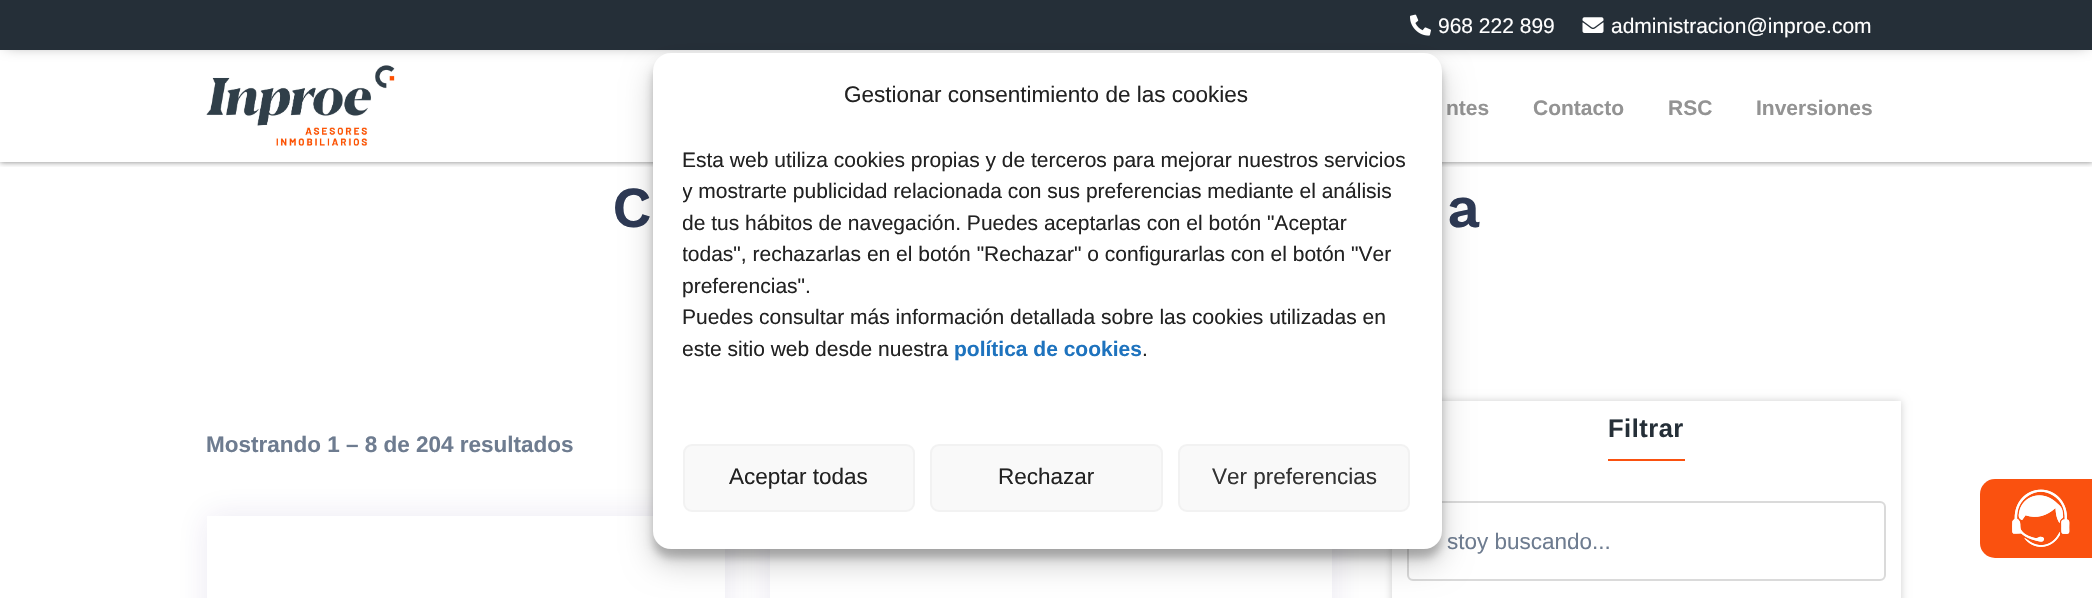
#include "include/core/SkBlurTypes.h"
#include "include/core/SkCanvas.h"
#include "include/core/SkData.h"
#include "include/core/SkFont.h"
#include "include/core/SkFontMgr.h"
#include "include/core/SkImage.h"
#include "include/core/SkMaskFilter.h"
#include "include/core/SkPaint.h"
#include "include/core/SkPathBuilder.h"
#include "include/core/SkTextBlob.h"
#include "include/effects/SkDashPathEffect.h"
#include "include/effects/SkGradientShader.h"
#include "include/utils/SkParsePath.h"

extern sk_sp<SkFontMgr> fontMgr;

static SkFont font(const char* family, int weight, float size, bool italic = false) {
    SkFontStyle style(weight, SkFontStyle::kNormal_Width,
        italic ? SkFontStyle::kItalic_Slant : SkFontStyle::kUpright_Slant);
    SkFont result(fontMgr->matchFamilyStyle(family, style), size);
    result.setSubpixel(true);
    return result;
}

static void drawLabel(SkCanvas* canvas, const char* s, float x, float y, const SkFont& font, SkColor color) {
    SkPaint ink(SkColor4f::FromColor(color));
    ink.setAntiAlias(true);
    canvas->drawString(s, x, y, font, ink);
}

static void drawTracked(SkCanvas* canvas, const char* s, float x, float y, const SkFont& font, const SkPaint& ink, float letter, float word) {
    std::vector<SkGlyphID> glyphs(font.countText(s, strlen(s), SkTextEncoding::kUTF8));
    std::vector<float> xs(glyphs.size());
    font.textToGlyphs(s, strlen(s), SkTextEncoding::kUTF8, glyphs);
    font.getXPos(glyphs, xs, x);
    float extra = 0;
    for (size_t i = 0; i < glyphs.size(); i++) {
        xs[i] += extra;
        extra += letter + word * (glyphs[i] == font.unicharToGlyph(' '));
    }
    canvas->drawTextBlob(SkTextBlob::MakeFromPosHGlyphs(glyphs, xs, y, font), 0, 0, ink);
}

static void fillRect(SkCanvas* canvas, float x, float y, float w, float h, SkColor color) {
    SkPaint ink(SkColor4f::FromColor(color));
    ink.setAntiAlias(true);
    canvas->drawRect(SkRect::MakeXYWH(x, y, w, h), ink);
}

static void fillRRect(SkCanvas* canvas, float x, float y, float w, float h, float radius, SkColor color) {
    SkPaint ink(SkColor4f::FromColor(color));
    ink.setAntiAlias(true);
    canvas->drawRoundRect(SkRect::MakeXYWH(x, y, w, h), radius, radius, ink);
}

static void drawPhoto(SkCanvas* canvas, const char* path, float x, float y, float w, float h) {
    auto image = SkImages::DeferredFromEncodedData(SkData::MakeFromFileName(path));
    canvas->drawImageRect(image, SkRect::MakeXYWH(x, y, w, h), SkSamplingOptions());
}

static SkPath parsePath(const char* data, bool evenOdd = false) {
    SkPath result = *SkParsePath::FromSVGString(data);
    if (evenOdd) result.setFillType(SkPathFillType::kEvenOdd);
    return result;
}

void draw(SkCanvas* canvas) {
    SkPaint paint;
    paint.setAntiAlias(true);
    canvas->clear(0xFFFFFFFF);
    canvas->save();
    canvas->clipRect(SkRect::MakeXYWH(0, 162, 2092, 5));
    paint.setColor(0x80000000);
    paint.setMaskFilter(SkMaskFilter::MakeBlur(kNormal_SkBlurStyle, 3));
    canvas->drawRect(SkRect::MakeXYWH(0, 50, 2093, 112), paint);
    paint.setMaskFilter(nullptr);
    canvas->restore();
    drawPhoto(canvas, "assets/img3.png", 206, 65, 189, 81);
    paint.setMaskFilter(SkMaskFilter::MakeBlur(kNormal_SkBlurStyle, 7.5f));
    canvas->drawRect(SkRect::MakeXYWH(6, 6, 2081, 38), paint);
    paint.setMaskFilter(nullptr);
    fillRect(canvas, 0, 0, 2092, 50, 0xFF252F38);
    drawPhoto(canvas, "assets/img1.png", 1410, 14, 21, 22);
    SkFont font1 = font("Liberation Sans", 400, 21);
    drawLabel(canvas, "968 222 899", 1438, 33, font1, 0xFFFFFFFF);
    drawPhoto(canvas, "assets/img2.png", 1582, 17, 22, 16);
    drawLabel(canvas, "administracion@inproe.com", 1611, 33, font1, 0xFFFFFFFF);
    SkFont font2 = font("Liberation Sans", 700, 21);
    drawLabel(canvas, "ntes", 1446, 115, font2, 0xFF939393);
    drawLabel(canvas, "Contacto", 1533, 115, font2, 0xFF939393);
    drawLabel(canvas, "RSC", 1668, 115, font2, 0xFF939393);
    drawLabel(canvas, "Inversiones", 1756, 115, font2, 0xFF939393);
    SkFont font3 = font("Work Sans", 600, 58);
    drawLabel(canvas, "C", 612, 227, font3, 0xFF2D3954);
    drawLabel(canvas, "a", 1447, 227, font3, 0xFF2D3954);
    SkFont font4 = font("Liberation Sans", 700, 22.5f);
    drawLabel(canvas, "Mostrando 1 – 8 de 204 resultados", 206, 452, font4, 0xFF6E7C90);
    paint.setColor(0x1A3E1C83);
    paint.setMaskFilter(SkMaskFilter::MakeBlur(kNormal_SkBlurStyle, 15));
    canvas->drawRect(SkRect::MakeXYWH(207, 516, 518, 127), paint);
    paint.setMaskFilter(nullptr);
    fillRect(canvas, 207, 516, 518, 82, 0xFFFFFFFF);
    canvas->save();
    canvas->clipPath(parsePath("M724 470H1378V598H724ZM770 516H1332V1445H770Z", true), true);
    paint.setMaskFilter(SkMaskFilter::MakeBlur(kNormal_SkBlurStyle, 15));
    canvas->drawRect(SkRect::MakeXYWH(770, 516, 562, 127), paint);
    paint.setMaskFilter(nullptr);
    canvas->restore();
    canvas->save();
    canvas->clipPath(parsePath("M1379 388H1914V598H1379ZM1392 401H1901V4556H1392Z", true), true);
    paint.setColor(0x30000000);
    paint.setMaskFilter(SkMaskFilter::MakeBlur(kNormal_SkBlurStyle, 4));
    canvas->drawRect(SkRect::MakeXYWH(1392, 401, 509, 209), paint);
    paint.setMaskFilter(nullptr);
    canvas->restore();
    SkFont font5 = font("Liberation Sans", 700, 25.5f);
    paint.setColor(0xFF252F38);
    drawTracked(canvas, "Filtrar", 1608, 437, font5, paint, 0.5f, 0);
    fillRect(canvas, 1608, 459, 77, 2, 0xFFFA510F);
    paint.setStroke(true);
    paint.setStrokeWidth(2);
    paint.setColor(0xFFDADADA);
    canvas->drawRoundRect(SkRect::MakeXYWH(1408, 502, 477, 78), 5, 5, paint);
    SkFont font6 = font("Liberation Sans", 400, 22.5f);
    drawLabel(canvas, "stoy buscando...", 1447, 549, font6, 0xFF6E7C90);
    fillRRect(canvas, 1980, 479, 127, 79, 15, 0xFFFA510F);
    drawPhoto(canvas, "assets/img4.png", 2012, 489, 58, 58);
    paint.setStroke(false);
    paint.setColor(0x3B000000);
    paint.setMaskFilter(SkMaskFilter::MakeBlur(kNormal_SkBlurStyle, 4.5f));
    canvas->drawRoundRect(SkRect::MakeXYWH(653, 62, 789, 496), 18, 18, paint);
    paint.setMaskFilter(nullptr);
    paint.setColor(0x30000000);
    paint.setMaskFilter(SkMaskFilter::MakeBlur(kNormal_SkBlurStyle, 15));
    canvas->drawRoundRect(SkRect::MakeXYWH(653, 68, 789, 496), 18, 18, paint);
    paint.setMaskFilter(nullptr);
    fillRRect(canvas, 653, 53, 789, 496, 18, 0xFFFFFFFF);
    drawLabel(canvas, "Gestionar consentimiento de las cookies", 844, 102, font6, 0xFF222222);
    drawLabel(canvas, "Esta web utiliza cookies propias y de terceros para mejorar nuestros servicios", 682, 167, font1, 0xFF222222);
    canvas->save();
    canvas->clipRect(SkRect::MakeXYWH(683, 146, 729, 268));
    drawLabel(canvas, "y mostrarte publicidad relacionada con sus preferencias mediante el análisis", 682, 198, font1, 0xFF222222);
    drawLabel(canvas, "de tus hábitos de navegación. Puedes aceptarlas con el botón \"Aceptar", 682, 230, font1, 0xFF222222);
    drawLabel(canvas, "todas\", rechazarlas en el botón \"Rechazar\" o configurarlas con el botón \"Ver", 682, 261, font1, 0xFF222222);
    canvas->restore();
    drawLabel(canvas, "preferencias\".", 682, 293, font1, 0xFF222222);
    drawLabel(canvas, "Puedes consultar más información detallada sobre las cookies utilizadas en", 682, 324, font1, 0xFF222222);
    canvas->save();
    canvas->clipRect(SkRect::MakeXYWH(683, 146, 729, 268));
    drawLabel(canvas, "este sitio web desde nuestra", 682, 356, font1, 0xFF222222);
    canvas->restore();
    drawLabel(canvas, "política de cookies", 954, 356, font2, 0xFF1E73BE);
    drawLabel(canvas, ".", 1142, 356, font1, 0xFF222222);
    paint.setColor(0xFFF9F9F9);
    canvas->drawRoundRect(SkRect::MakeXYWH(684, 445, 230, 66), 8, 8, paint);
    paint.setStroke(true);
    paint.setColor(0xFFF2F2F2);
    canvas->drawRoundRect(SkRect::MakeXYWH(684, 445, 230, 66), 8, 8, paint);
    drawLabel(canvas, "Aceptar todas", 729, 484, font6, 0xFF222222);
    paint.setStroke(false);
    paint.setColor(0xFFF9F9F9);
    canvas->drawRoundRect(SkRect::MakeXYWH(931, 445, 231, 66), 8, 8, paint);
    paint.setStroke(true);
    paint.setColor(0xFFF2F2F2);
    canvas->drawRoundRect(SkRect::MakeXYWH(931, 445, 231, 66), 8, 8, paint);
    drawLabel(canvas, "Rechazar", 998, 484, font6, 0xFF222222);
    paint.setStroke(false);
    paint.setColor(0xFFF9F9F9);
    canvas->drawRoundRect(SkRect::MakeXYWH(1179, 445, 230, 66), 8, 8, paint);
    paint.setStroke(true);
    paint.setColor(0xFFF2F2F2);
    canvas->drawRoundRect(SkRect::MakeXYWH(1179, 445, 230, 66), 8, 8, paint);
    drawLabel(canvas, "Ver preferencias", 1212, 484, font6, 0xFF333333);
}
